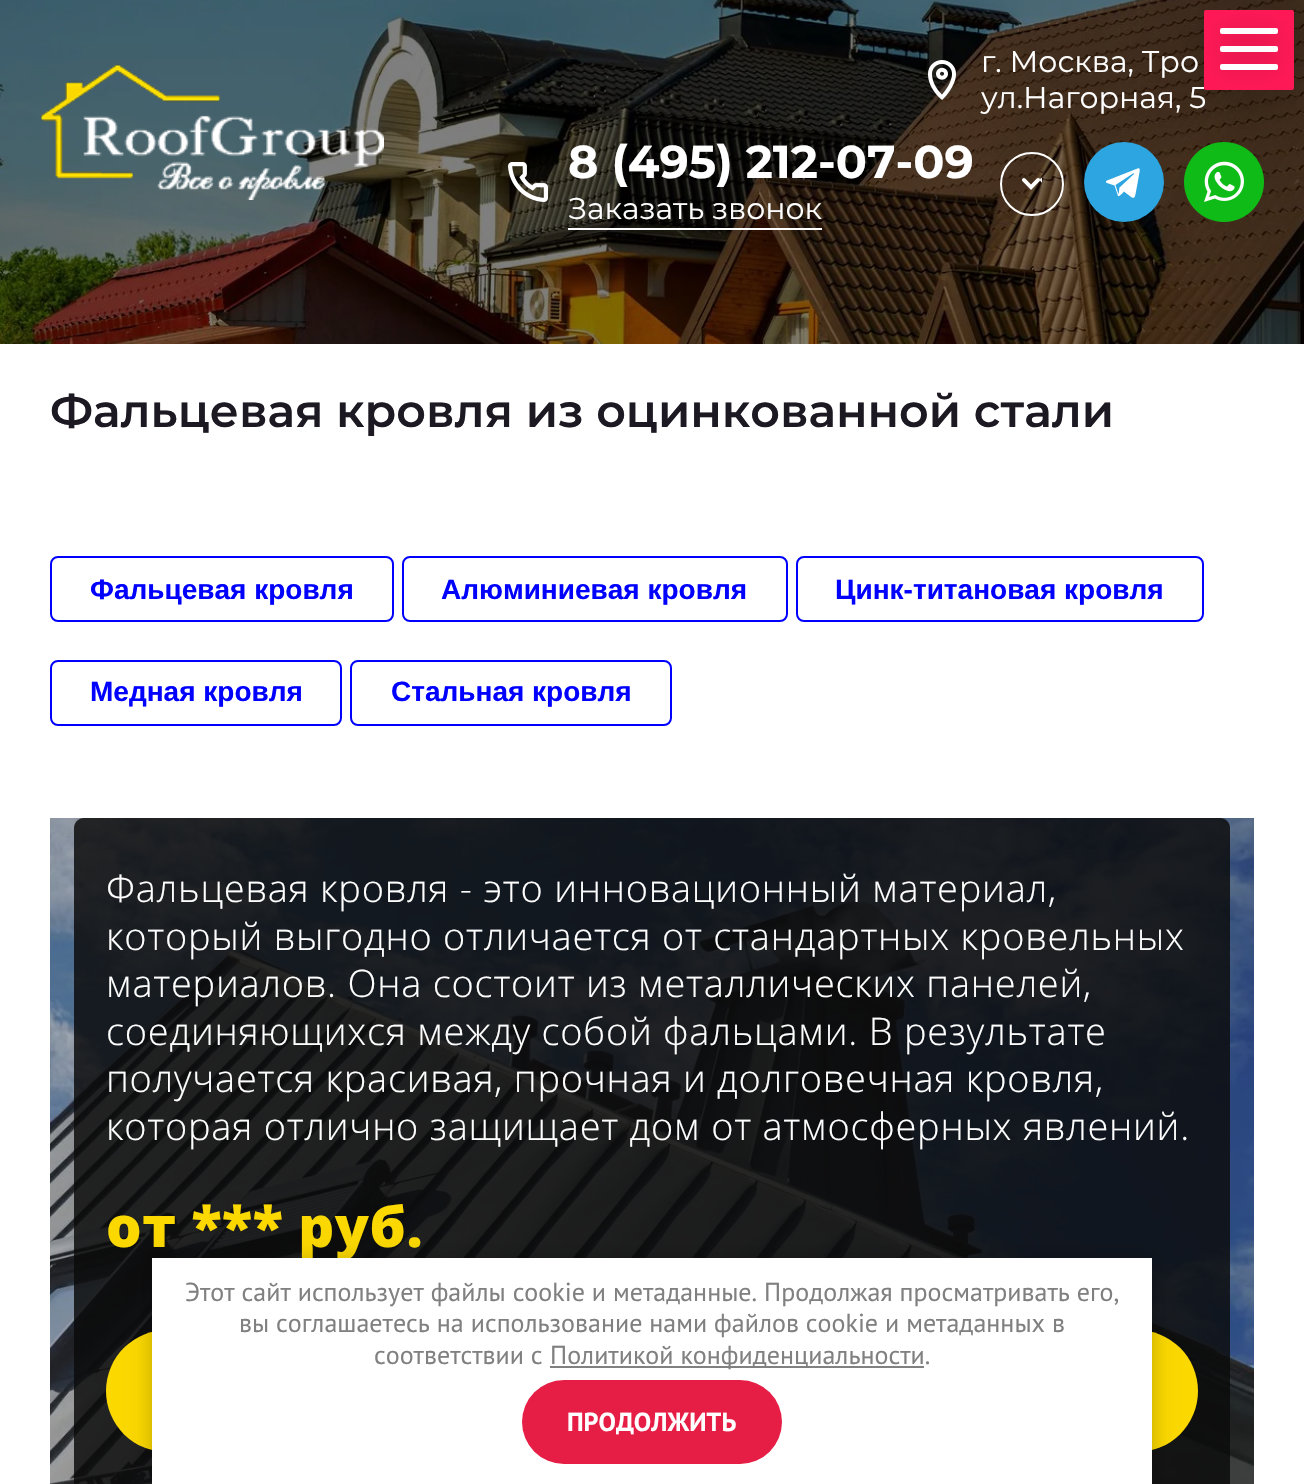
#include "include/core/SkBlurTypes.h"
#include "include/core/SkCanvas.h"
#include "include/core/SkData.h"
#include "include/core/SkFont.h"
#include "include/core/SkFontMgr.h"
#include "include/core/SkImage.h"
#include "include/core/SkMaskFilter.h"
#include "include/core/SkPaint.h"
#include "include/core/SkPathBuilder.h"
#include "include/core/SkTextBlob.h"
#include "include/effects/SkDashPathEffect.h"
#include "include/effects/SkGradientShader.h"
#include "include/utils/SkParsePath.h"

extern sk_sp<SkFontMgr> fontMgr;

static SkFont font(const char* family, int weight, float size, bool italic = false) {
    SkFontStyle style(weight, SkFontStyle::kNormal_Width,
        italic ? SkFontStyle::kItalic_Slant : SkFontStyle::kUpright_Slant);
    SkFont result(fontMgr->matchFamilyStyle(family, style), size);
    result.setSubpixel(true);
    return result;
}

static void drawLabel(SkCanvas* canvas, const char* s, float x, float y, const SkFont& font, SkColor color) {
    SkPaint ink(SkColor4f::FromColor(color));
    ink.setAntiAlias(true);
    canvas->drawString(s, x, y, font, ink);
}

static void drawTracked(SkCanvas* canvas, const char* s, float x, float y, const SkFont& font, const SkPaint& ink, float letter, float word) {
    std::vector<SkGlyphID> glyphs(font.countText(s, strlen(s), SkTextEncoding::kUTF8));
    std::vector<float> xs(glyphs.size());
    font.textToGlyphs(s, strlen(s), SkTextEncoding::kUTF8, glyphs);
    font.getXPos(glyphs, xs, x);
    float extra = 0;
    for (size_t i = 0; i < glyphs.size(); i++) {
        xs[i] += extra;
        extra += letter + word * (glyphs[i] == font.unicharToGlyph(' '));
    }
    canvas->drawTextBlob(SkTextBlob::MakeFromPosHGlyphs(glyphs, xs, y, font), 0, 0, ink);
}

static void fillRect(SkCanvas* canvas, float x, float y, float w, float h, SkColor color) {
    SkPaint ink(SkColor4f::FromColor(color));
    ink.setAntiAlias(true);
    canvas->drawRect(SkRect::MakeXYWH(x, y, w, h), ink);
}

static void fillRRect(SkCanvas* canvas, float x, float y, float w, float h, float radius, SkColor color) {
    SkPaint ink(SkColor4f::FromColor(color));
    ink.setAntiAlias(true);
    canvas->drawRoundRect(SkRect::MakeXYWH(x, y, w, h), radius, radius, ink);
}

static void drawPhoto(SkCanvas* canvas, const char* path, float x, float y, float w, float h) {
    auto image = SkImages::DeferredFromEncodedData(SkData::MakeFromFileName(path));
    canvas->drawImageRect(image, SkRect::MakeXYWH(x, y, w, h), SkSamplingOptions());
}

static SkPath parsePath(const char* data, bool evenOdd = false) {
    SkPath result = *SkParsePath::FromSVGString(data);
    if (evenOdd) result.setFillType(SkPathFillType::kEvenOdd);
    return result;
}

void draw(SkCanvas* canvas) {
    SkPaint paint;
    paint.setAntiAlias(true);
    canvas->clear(0xFFFFFFFF);
    drawPhoto(canvas, "assets/img1.png", 0, 0, 1304, 344);
    paint.setColor(0xFF2CA5E0);
    canvas->drawCircle(1124, 182, 40, paint);
    paint.setColor(0xFFFFFFFF);
    canvas->drawPath(parsePath("M1137.5 168.5L1107 180.5C1105.5 181 1105.5 182.5 1107 183L1114.5 185.5L1117 193L1118 196C1119.5 197 1123.5 192 1124 191.5C1136.5 201 1134 201 1137.5 183.5L1139 175C1139 174.5 1141.5 166.5 1137.5 168.5ZM1115.5 185L1133 173.5C1134 173 1134 173.5 1134 174L1119.5 187.5L1118.5 194.5Z", true), paint);
    drawPhoto(canvas, "assets/img6.png", 1184, 142, 80, 80);
    paint.setColor(0x30000000);
    paint.setMaskFilter(SkMaskFilter::MakeBlur(kNormal_SkBlurStyle, 32));
    canvas->drawRoundRect(SkRect::MakeXYWH(1204, 22, 90, 80), 2, 2, paint);
    paint.setMaskFilter(nullptr);
    SkFont font1 = font("Montserrat", 400, 30);
    drawLabel(canvas, "ул.Нагорная, 5", 981, 108, font1, 0xFFFFFFFF);
    fillRRect(canvas, 1204, 10, 90, 80, 2, 0xFFFF1956);
    paint.setColor(0x33000000);
    paint.setMaskFilter(SkMaskFilter::MakeBlur(kNormal_SkBlurStyle, 11));
    canvas->drawRoundRect(SkRect::MakeXYWH(1220, 28, 58, 6), 2, 2, paint);
    paint.setMaskFilter(nullptr);
    fillRRect(canvas, 1220, 28, 58, 6, 2, 0xFFFFFFFF);
    paint.setMaskFilter(SkMaskFilter::MakeBlur(kNormal_SkBlurStyle, 11));
    canvas->drawRoundRect(SkRect::MakeXYWH(1220, 46, 58, 6), 2, 2, paint);
    paint.setMaskFilter(nullptr);
    fillRRect(canvas, 1220, 46, 58, 6, 2, 0xFFFFFFFF);
    paint.setMaskFilter(SkMaskFilter::MakeBlur(kNormal_SkBlurStyle, 11));
    canvas->drawRoundRect(SkRect::MakeXYWH(1220, 64, 58, 6), 2, 2, paint);
    paint.setMaskFilter(nullptr);
    fillRRect(canvas, 1220, 64, 58, 6, 2, 0xFFFFFFFF);
    drawPhoto(canvas, "assets/img2.png", 40, 64, 344, 136);
    drawPhoto(canvas, "assets/img3.png", 928, 60, 28, 40);
    drawLabel(canvas, "г. Москва, Тро", 981, 72, font1, 0xFFFFFFFF);
    drawPhoto(canvas, "assets/img4.png", 508, 162, 40, 40);
    SkFont font2 = font("Montserrat", 700, 46);
    drawLabel(canvas, "8 (495) 212-07-09", 568, 178, font2, 0xFFFFFFFF);
    drawLabel(canvas, "Заказать звонок", 568, 219, font1, 0xFFFFFFFF);
    fillRect(canvas, 568, 228, 254, 2, 0xFFFFFFFF);
    paint.setStroke(true);
    paint.setStrokeWidth(2);
    paint.setColor(0xFFFFFFFF);
    canvas->drawCircle(1032, 184, 31, paint);
    drawPhoto(canvas, "assets/img5.png", 1022, 178, 20, 12);
    SkFont font3 = font("Montserrat", 600, 46);
    drawLabel(canvas, "Фальцевая кровля из оцинкованной стали", 50, 427, font3, 0xFF1D1923);
    paint.setColor(0xFF0000FF);
    canvas->drawRoundRect(SkRect::MakeXYWH(51, 557, 342, 64), 7, 7, paint);
    SkFont font4 = font("Liberation Sans", 700, 28);
    drawLabel(canvas, "Фальцевая кровля", 90, 599, font4, 0xFF0000FF);
    canvas->drawRoundRect(SkRect::MakeXYWH(403, 557, 384, 64), 7, 7, paint);
    drawLabel(canvas, "Алюминиевая кровля", 441, 599, font4, 0xFF0000FF);
    canvas->drawRoundRect(SkRect::MakeXYWH(797, 557, 406, 64), 7, 7, paint);
    drawLabel(canvas, "Цинк-титановая кровля", 835, 599, font4, 0xFF0000FF);
    canvas->drawRoundRect(SkRect::MakeXYWH(51, 661, 290, 64), 7, 7, paint);
    drawLabel(canvas, "Медная кровля", 90, 701, font4, 0xFF0000FF);
    canvas->drawRoundRect(SkRect::MakeXYWH(351, 661, 320, 64), 7, 7, paint);
    drawLabel(canvas, "Стальная кровля", 391, 701, font4, 0xFF0000FF);
    drawPhoto(canvas, "assets/img7.png", 50, 818, 1204, 666);
    SkFont font5 = font("Open Sans", 300, 38);
    paint.setStroke(false);
    paint.setColor(0xFFFFFFFF);
    drawTracked(canvas, "Фальцевая кровля - это инновационный материал,", 106, 902, font5, paint, 0.75f, 0);
    drawTracked(canvas, "который выгодно отличается от стандартных кровельных", 106, 950, font5, paint, 0.75f, 0);
    drawTracked(canvas, "материалов. Она состоит из металлических панелей,", 106, 997, font5, paint, 0.75f, 0);
    drawTracked(canvas, "соединяющихся между собой фальцами. В результате", 106, 1045, font5, paint, 0.75f, 0);
    drawTracked(canvas, "получается красивая, прочная и долговечная кровля,", 106, 1092, font5, paint, 0.75f, 0);
    drawTracked(canvas, "которая отлично защищает дом от атмосферных явлений.", 106, 1140, font5, paint, 0.75f, 0);
    SkFont font6 = font("Open Sans", 800, 56);
    paint.setColor(0xFFFBD800);
    drawTracked(canvas, "от *** руб.", 106, 1247, font6, paint, 0.5f, 0);
    fillRRect(canvas, 106, 1330, 1092, 122, 61, 0xFFFBD800);
    paint.setColor(0x3B000000);
    paint.setMaskFilter(SkMaskFilter::MakeBlur(kNormal_SkBlurStyle, 10));
    canvas->drawRect(SkRect::MakeXYWH(152, 1260, 1000, 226), paint);
    paint.setMaskFilter(nullptr);
    fillRect(canvas, 152, 1258, 1000, 226, 0xFFFFFFFF);
    SkFont font7 = font("PT Sans", 400, 26);
    drawLabel(canvas, "Этот сайт использует файлы cookie и метаданные. Продолжая просматривать его,", 185, 1301, font7, 0xFF808080);
    drawLabel(canvas, "вы соглашаетесь на использование нами файлов cookie и метаданных в", 239, 1332, font7, 0xFF808080);
    drawLabel(canvas, "соответствии с", 374, 1364, font7, 0xFF808080);
    fillRect(canvas, 550, 1366, 374, 2, 0xFF808080);
    drawLabel(canvas, "Политикой конфиденциальности.", 550, 1364, font7, 0xFF808080);
    fillRRect(canvas, 522, 1380, 260, 84, 42, 0xFFE61E46);
    SkFont font8 = font("PT Sans", 700, 26);
    drawLabel(canvas, "ПРОДОЛЖИТЬ", 567, 1431, font8, 0xFFFFFFFF);
}
